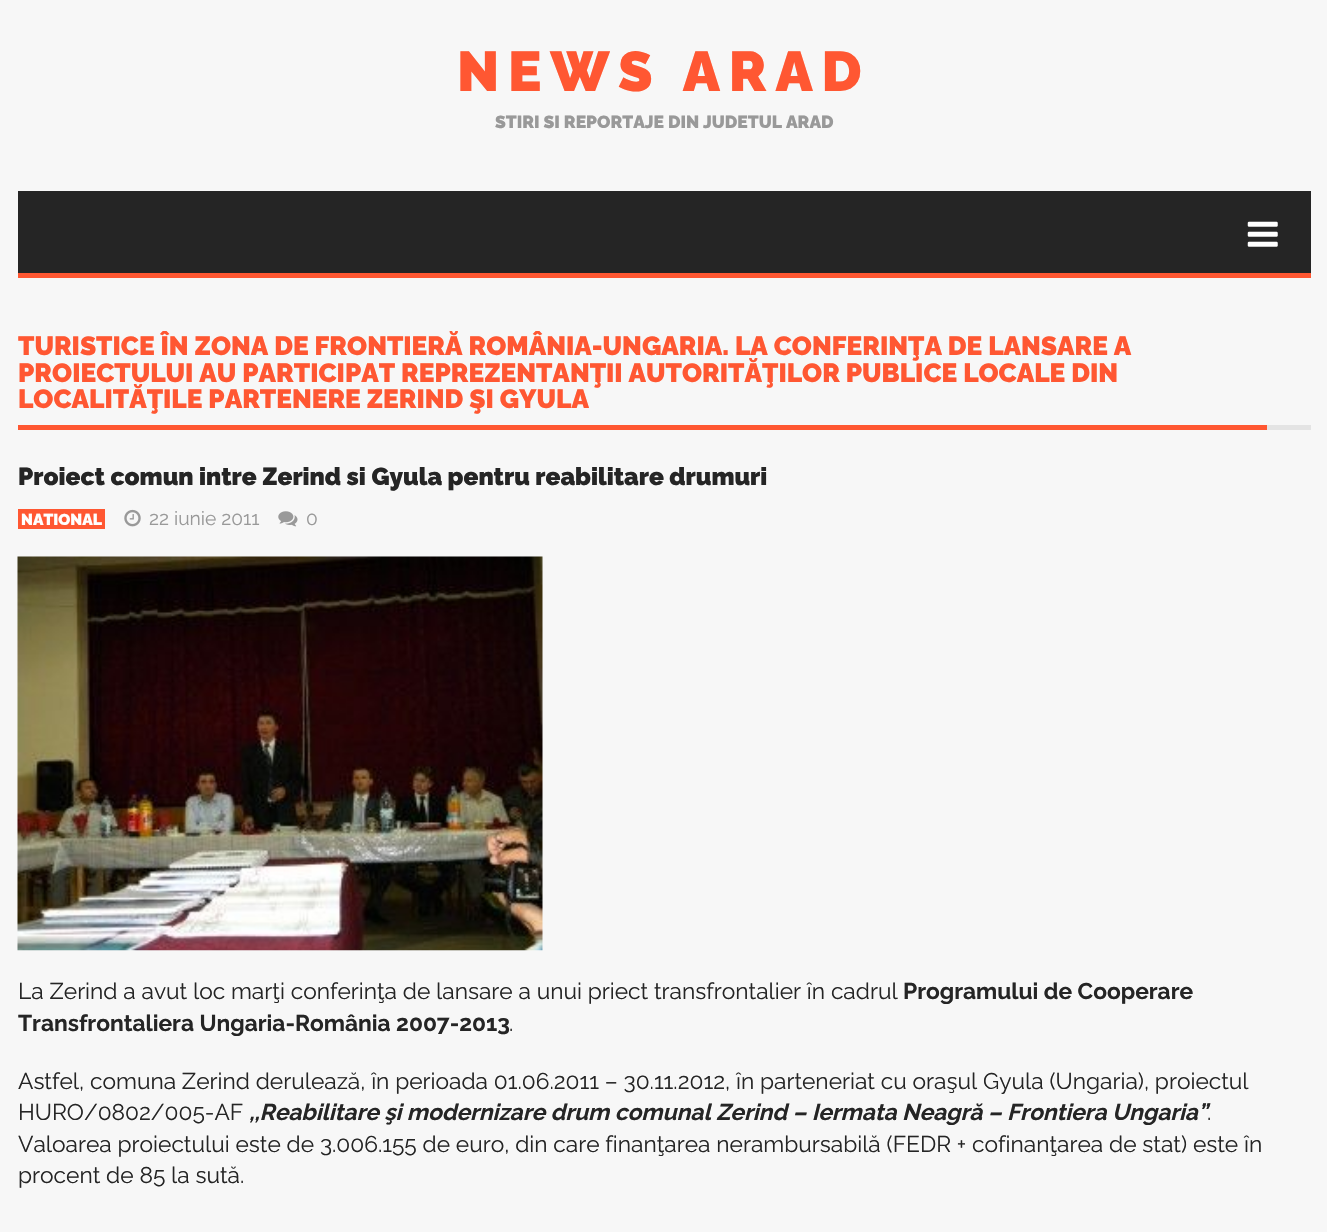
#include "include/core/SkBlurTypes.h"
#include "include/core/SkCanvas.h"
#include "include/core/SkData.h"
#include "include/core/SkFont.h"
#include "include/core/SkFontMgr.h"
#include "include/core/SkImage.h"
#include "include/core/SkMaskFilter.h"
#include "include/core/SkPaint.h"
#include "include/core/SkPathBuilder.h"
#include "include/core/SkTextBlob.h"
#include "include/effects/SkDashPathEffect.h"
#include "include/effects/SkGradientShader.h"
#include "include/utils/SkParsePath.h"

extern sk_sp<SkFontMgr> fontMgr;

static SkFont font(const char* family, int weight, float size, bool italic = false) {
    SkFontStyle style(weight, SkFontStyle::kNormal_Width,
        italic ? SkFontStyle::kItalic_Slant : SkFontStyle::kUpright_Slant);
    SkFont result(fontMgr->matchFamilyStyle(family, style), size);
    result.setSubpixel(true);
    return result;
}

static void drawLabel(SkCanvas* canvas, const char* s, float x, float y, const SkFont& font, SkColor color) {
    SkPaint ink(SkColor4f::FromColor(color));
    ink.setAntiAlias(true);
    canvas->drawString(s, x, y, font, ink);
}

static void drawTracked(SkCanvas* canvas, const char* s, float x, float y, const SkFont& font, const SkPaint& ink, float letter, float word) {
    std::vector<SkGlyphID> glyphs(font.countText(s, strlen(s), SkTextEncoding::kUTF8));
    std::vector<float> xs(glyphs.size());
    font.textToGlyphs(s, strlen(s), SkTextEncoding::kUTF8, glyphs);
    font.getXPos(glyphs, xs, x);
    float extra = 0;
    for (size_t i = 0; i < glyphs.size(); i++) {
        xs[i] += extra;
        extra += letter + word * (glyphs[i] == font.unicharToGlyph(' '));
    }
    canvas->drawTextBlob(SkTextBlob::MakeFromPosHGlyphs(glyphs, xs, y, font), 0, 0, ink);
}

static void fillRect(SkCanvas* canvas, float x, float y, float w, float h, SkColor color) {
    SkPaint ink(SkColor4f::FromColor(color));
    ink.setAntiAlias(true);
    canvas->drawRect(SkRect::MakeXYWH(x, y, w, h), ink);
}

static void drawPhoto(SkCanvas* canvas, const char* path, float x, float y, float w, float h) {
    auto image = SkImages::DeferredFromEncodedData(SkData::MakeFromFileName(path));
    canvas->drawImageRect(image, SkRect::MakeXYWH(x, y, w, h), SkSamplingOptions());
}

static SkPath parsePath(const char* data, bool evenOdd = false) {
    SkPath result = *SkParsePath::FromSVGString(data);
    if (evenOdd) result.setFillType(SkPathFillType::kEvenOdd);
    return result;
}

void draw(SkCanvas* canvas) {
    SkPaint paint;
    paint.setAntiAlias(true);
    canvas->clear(0xFFF7F7F7);
    SkFont font1 = font("Raleway", 900, 56);
    paint.setColor(0xFFFF5732);
    drawTracked(canvas, "NEWS ARAD", 457, 91, font1, paint, 8.75f, 0);
    SkFont font2 = font("Raleway", 900, 17.5f);
    drawLabel(canvas, "STIRI SI REPORTAJE DIN JUDETUL ARAD", 495, 128, font2, 0xFF999999);
    canvas->drawPath(parsePath("M18 273V278H1311V196V273Z"), paint);
    fillRect(canvas, 18, 191, 1293, 82, 0xFF252525);
    drawPhoto(canvas, "assets/img1.png", 1247, 221, 31, 26);
    fillRect(canvas, 1267, 425, 44, 5, 0xFFE4E4E4);
    fillRect(canvas, 18, 425, 1249, 5, 0xFFFF5732);
    SkFont font3 = font("Raleway", 900, 26.25f);
    drawLabel(canvas, "TURISTICE ÎN ZONA DE FRONTIERĂ ROMÂNIA-UNGARIA. LA CONFERINŢA DE LANSARE A", 18, 355, font3, 0xFFFF5732);
    drawLabel(canvas, "PROIECTULUI AU PARTICIPAT REPREZENTANŢII AUTORITĂŢILOR PUBLICE LOCALE DIN", 18, 382, font3, 0xFFFF5732);
    drawLabel(canvas, "LOCALITĂŢILE PARTENERE ZERIND ŞI GYULA", 18, 408, font3, 0xFFFF5732);
    SkFont font4 = font("Raleway", 900, 24.5f);
    drawLabel(canvas, "Proiect comun intre Zerind si Gyula pentru reabilitare drumuri", 18, 485, font4, 0xFF252525);
    fillRect(canvas, 18, 509, 87, 20, 0xFFFF5732);
    SkFont font5 = font("Raleway", 900, 15.75f);
    drawLabel(canvas, "NATIONAL", 21, 525, font5, 0xFFFFFFFF);
    drawPhoto(canvas, "assets/img2.png", 124, 509, 17, 18);
    SkFont font6 = font("Raleway", 400, 19.25f);
    drawLabel(canvas, "22 iunie 2011", 149, 525, font6, 0xFF999999);
    drawPhoto(canvas, "assets/img3.png", 278, 511, 20, 16);
    drawLabel(canvas, "0", 306, 525, font6, 0xFF999999);
    drawPhoto(canvas, "assets/img4.png", 17, 556, 526, 395);
    SkFont font7 = font("Raleway", 400, 22.75f);
    drawLabel(canvas, "La Zerind a avut loc marţi conferinţa de lansare a unui priect transfrontalier în cadrul", 18, 999, font7, 0xFF252525);
    SkFont font8 = font("Raleway", 700, 22.75f);
    drawLabel(canvas, "Programului de Cooperare", 903, 999, font8, 0xFF252525);
    drawLabel(canvas, "Transfrontaliera Ungaria-România 2007-2013", 18, 1031, font8, 0xFF252525);
    drawLabel(canvas, ".", 509, 1031, font7, 0xFF252525);
    drawLabel(canvas, "Astfel, comuna Zerind derulează, în perioada 01.06.2011 – 30.11.2012, în parteneriat cu oraşul Gyula (Ungaria), proiectul", 18, 1089, font7, 0xFF252525);
    drawLabel(canvas, "HURO/0802/005-AF", 18, 1120, font7, 0xFF252525);
    SkFont font9 = font("Raleway", 700, 22.75f, true);
    drawLabel(canvas, ",,Reabilitare şi modernizare drum comunal Zerind – Iermata Neagră – Frontiera Ungaria”", 249, 1120, font9, 0xFF252525);
    drawLabel(canvas, ".", 1207, 1120, font7, 0xFF252525);
    drawLabel(canvas, "Valoarea proiectului este de 3.006.155 de euro, din care finanţarea nerambursabilă (FEDR + cofinanţarea de stat) este în", 18, 1152, font7, 0xFF252525);
    drawLabel(canvas, "procent de 85 la sută.", 18, 1183, font7, 0xFF252525);
}
